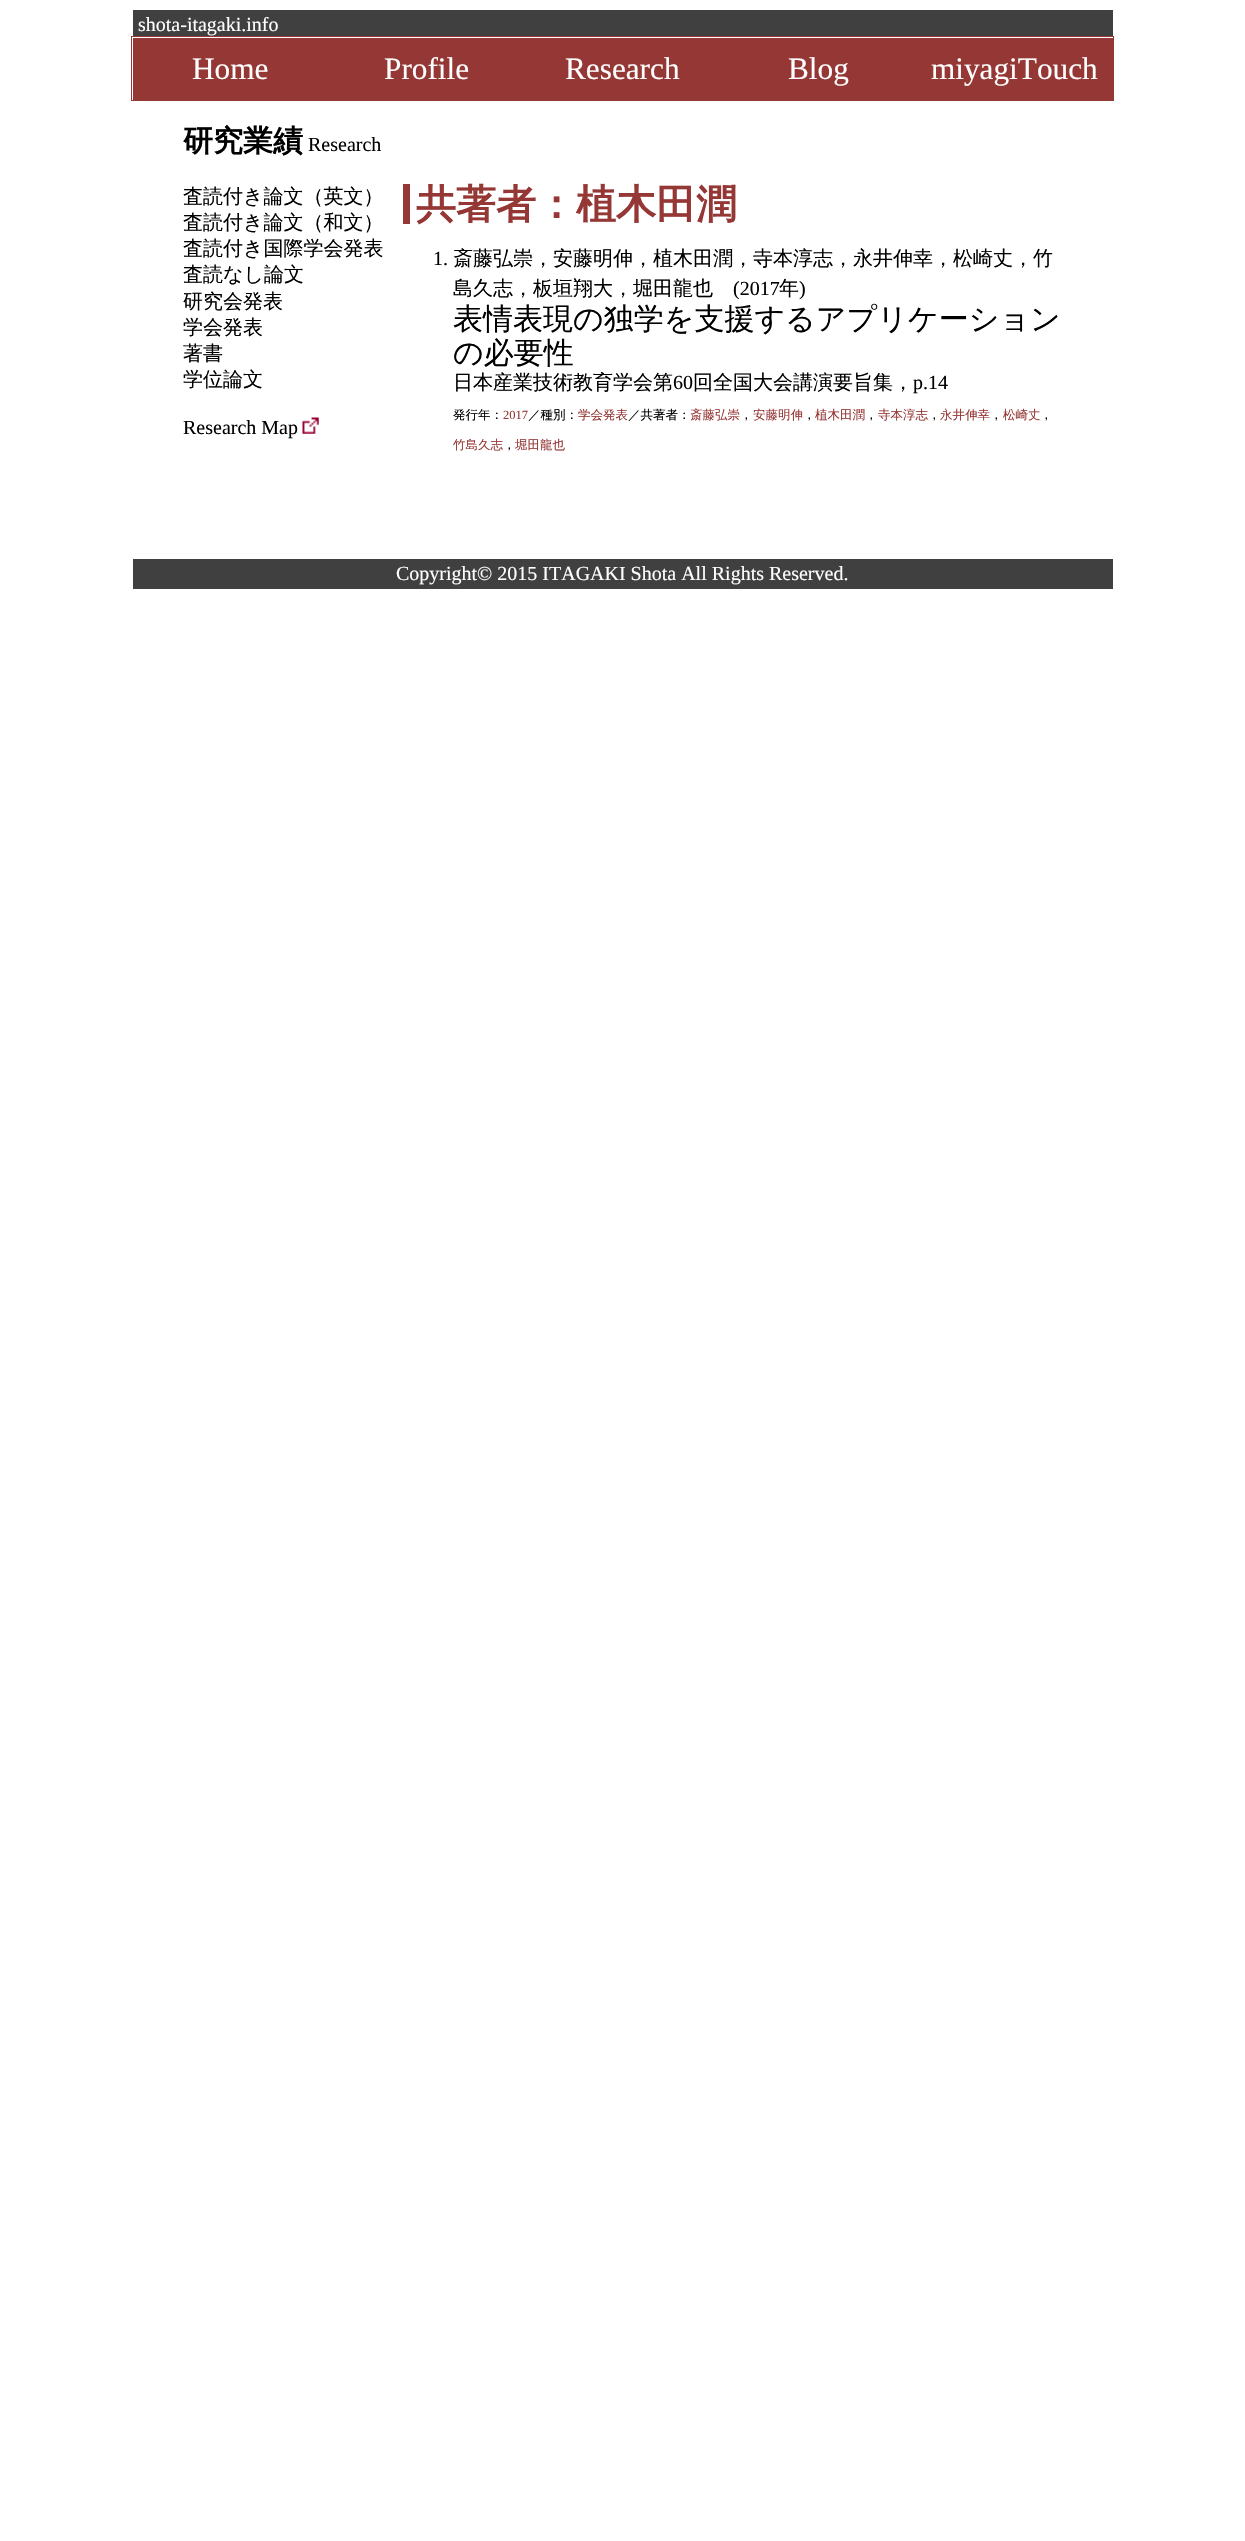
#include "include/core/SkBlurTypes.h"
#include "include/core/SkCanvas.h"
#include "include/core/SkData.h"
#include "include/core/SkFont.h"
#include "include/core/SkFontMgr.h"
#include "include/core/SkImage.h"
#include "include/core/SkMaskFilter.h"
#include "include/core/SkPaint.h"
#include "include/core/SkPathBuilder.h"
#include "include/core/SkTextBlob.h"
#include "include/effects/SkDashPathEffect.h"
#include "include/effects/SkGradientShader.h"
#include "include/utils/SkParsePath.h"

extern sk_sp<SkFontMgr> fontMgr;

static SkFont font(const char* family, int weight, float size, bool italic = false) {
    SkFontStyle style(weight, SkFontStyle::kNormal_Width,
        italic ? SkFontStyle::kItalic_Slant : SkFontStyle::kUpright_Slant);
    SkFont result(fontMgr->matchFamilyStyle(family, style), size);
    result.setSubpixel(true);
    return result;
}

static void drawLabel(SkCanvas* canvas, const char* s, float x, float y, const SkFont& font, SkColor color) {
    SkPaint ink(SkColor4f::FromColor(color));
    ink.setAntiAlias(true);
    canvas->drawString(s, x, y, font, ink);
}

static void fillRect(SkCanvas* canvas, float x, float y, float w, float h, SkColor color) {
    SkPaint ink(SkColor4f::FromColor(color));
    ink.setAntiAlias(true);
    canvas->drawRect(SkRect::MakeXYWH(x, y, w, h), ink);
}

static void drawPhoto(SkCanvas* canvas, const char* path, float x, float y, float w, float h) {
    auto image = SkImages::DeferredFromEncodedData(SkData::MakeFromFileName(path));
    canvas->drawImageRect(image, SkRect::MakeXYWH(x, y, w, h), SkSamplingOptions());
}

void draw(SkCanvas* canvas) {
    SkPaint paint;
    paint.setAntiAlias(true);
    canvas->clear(0xFFFFFFFF);
    fillRect(canvas, 133, 10, 980, 26, 0xFF404040);
    SkFont font1 = font("Liberation Serif", 400, 20);
    drawLabel(canvas, "shota-itagaki.info", 138, 31, font1, 0xFFFFFFFF);
    paint.setStroke(true);
    paint.setStrokeWidth(1);
    paint.setColor(0xFF953735);
    canvas->drawRect(SkRect::MakeXYWH(131.5f, 36.5f, 982, 64), paint);
    fillRect(canvas, 133, 38, 980, 62, 0xFF953735);
    SkFont font2 = font("Liberation Serif", 400, 31.25f);
    drawLabel(canvas, "Home", 192, 79, font2, 0xFFFFFFFF);
    drawLabel(canvas, "Profile", 384, 79, font2, 0xFFFFFFFF);
    drawLabel(canvas, "Research", 565, 79, font2, 0xFFFFFFFF);
    drawLabel(canvas, "Blog", 788, 79, font2, 0xFFFFFFFF);
    drawLabel(canvas, "miyagiTouch", 931, 79, font2, 0xFFFFFFFF);
    SkFont font3 = font("WenQuanYi Zen Hei", 700, 30);
    drawLabel(canvas, "研究業績", 183, 151, font3, 0xFF000000);
    drawLabel(canvas, "Research", 308, 151, font1, 0xFF000000);
    SkFont font4 = font("WenQuanYi Zen Hei", 500, 20);
    drawLabel(canvas, "査読付き論文（英文）", 183, 203, font4, 0xFF000000);
    drawLabel(canvas, "査読付き論文（和文）", 183, 229, font4, 0xFF000000);
    drawLabel(canvas, "査読付き国際学会発表", 183, 255, font4, 0xFF000000);
    drawLabel(canvas, "査読なし論文", 183, 281, font4, 0xFF000000);
    drawLabel(canvas, "研究会発表", 183, 308, font4, 0xFF000000);
    drawLabel(canvas, "学会発表", 183, 334, font4, 0xFF000000);
    drawLabel(canvas, "著書", 183, 360, font4, 0xFF000000);
    drawLabel(canvas, "学位論文", 183, 386, font4, 0xFF000000);
    drawLabel(canvas, "Research Map", 183, 434, font1, 0xFF000000);
    drawPhoto(canvas, "assets/img1.png", 302, 417, 17, 17);
    fillRect(canvas, 403, 184, 7, 40, 0xFF953735);
    SkFont font5 = font("WenQuanYi Zen Hei", 700, 40);
    drawLabel(canvas, "共著者：植木田潤", 416, 218, font5, 0xFF953735);
    drawLabel(canvas, "1.", 433, 265, font1, 0xFF000000);
    drawLabel(canvas, "斎藤弘崇，安藤明伸，植木田潤，寺本淳志，永井伸幸，松崎丈，竹", 453, 265, font4, 0xFF000000);
    drawLabel(canvas, "島久志，板垣翔大，堀田龍也", 453, 295, font4, 0xFF000000);
    drawLabel(canvas, "(2017", 733, 295, font1, 0xFF000000);
    drawLabel(canvas, "年", 779, 295, font4, 0xFF000000);
    drawLabel(canvas, ")", 799, 295, font1, 0xFF000000);
    SkFont font6 = font("WenQuanYi Zen Hei", 500, 30);
    drawLabel(canvas, "表情表現の独学を支援するアプリケーション", 453, 329, font6, 0xFF000000);
    drawLabel(canvas, "の必要性", 453, 363, font6, 0xFF000000);
    drawLabel(canvas, "日本産業技術教育学会第", 453, 389, font4, 0xFF000000);
    drawLabel(canvas, "60", 673, 389, font1, 0xFF000000);
    drawLabel(canvas, "回全国大会講演要旨集，", 693, 389, font4, 0xFF000000);
    drawLabel(canvas, "p.14", 913, 389, font1, 0xFF000000);
    SkFont font7 = font("WenQuanYi Zen Hei", 500, 12.5f);
    drawLabel(canvas, "発行年：", 453, 419, font7, 0xFF000000);
    SkFont font8 = font("Liberation Serif", 400, 12.5f);
    drawLabel(canvas, "2017", 503, 419, font8, 0xFF953735);
    drawLabel(canvas, "／種別：", 528, 419, font7, 0xFF000000);
    drawLabel(canvas, "学会発表", 578, 419, font7, 0xFF953735);
    drawLabel(canvas, "／共著者：", 628, 419, font7, 0xFF000000);
    drawLabel(canvas, "斎藤弘崇", 690, 419, font7, 0xFF953735);
    drawLabel(canvas, "，", 740, 419, font7, 0xFF000000);
    drawLabel(canvas, "安藤明伸", 753, 419, font7, 0xFF953735);
    drawLabel(canvas, "，", 803, 419, font7, 0xFF000000);
    drawLabel(canvas, "植木田潤", 815, 419, font7, 0xFF953735);
    drawLabel(canvas, "，", 865, 419, font7, 0xFF000000);
    drawLabel(canvas, "寺本淳志", 878, 419, font7, 0xFF953735);
    drawLabel(canvas, "，", 928, 419, font7, 0xFF000000);
    drawLabel(canvas, "永井伸幸", 940, 419, font7, 0xFF953735);
    drawLabel(canvas, "，", 990, 419, font7, 0xFF000000);
    drawLabel(canvas, "松崎丈", 1003, 419, font7, 0xFF953735);
    drawLabel(canvas, "，", 1040, 419, font7, 0xFF000000);
    drawLabel(canvas, "竹島久志", 453, 449, font7, 0xFF953735);
    drawLabel(canvas, "，", 503, 449, font7, 0xFF000000);
    drawLabel(canvas, "堀田龍也", 515, 449, font7, 0xFF953735);
    fillRect(canvas, 133, 559, 980, 30, 0xFF404040);
    drawLabel(canvas, "Copyright© 2015 ITAGAKI Shota All Rights Reserved.", 396, 580, font1, 0xFFFFFFFF);
}
